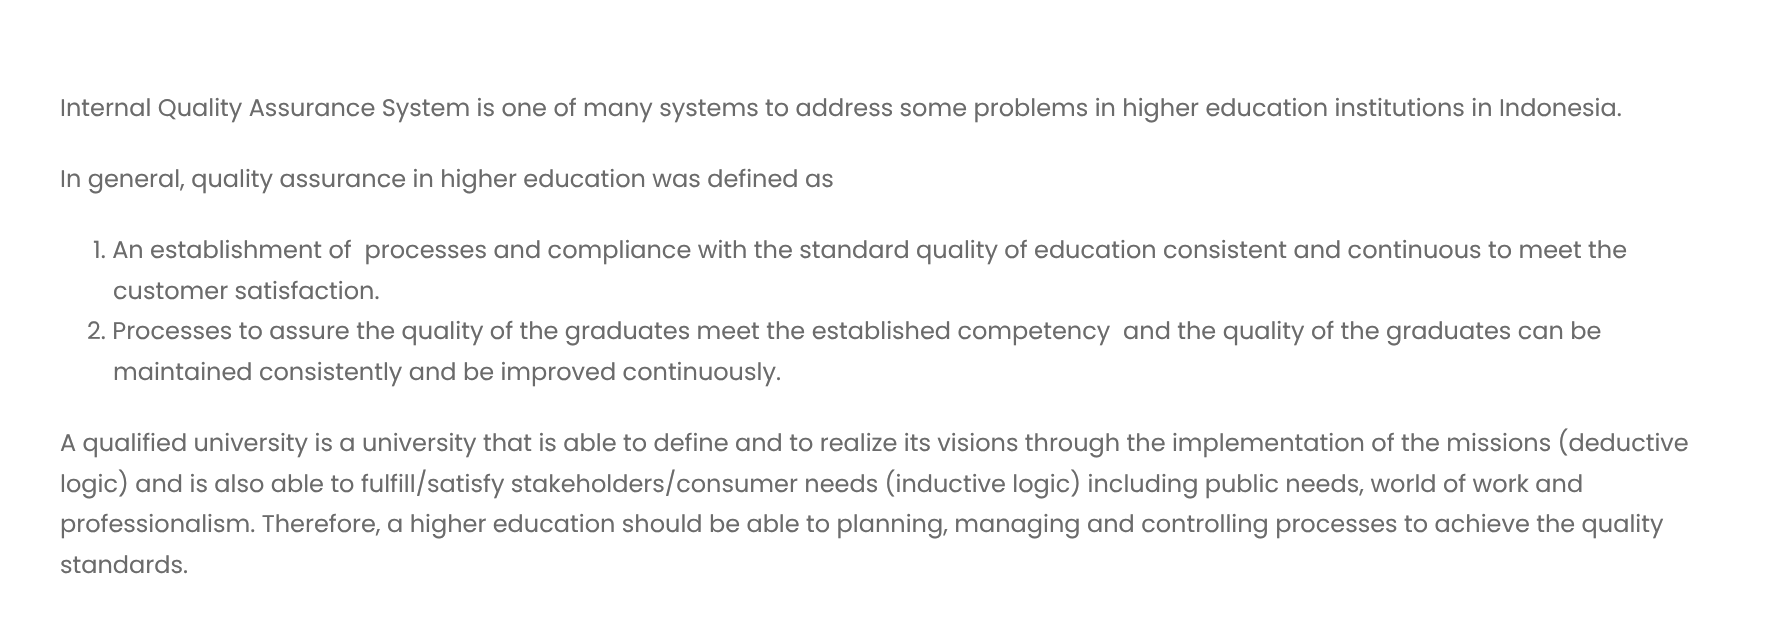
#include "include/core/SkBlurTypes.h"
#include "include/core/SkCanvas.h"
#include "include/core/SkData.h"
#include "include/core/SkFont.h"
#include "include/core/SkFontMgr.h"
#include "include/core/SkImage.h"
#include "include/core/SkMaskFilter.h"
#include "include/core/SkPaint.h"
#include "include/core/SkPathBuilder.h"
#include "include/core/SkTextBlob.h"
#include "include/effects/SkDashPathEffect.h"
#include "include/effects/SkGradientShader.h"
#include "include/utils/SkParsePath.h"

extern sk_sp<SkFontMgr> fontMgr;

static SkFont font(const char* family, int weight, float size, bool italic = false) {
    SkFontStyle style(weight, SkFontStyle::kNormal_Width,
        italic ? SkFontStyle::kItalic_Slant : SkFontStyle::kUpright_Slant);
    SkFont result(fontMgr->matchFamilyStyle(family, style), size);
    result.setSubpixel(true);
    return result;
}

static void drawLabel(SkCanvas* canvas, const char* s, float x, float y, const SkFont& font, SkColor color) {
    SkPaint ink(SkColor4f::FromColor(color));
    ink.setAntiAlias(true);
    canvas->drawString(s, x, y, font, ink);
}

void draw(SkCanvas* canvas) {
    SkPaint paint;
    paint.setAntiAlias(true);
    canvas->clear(0xFFFFFFFF);
    SkFont font1 = font("Poppins", 400, 24);
    drawLabel(canvas, "Internal Quality Assurance System is one of many systems to address some problems in higher education institutions in Indonesia.", 60, 116, font1, 0xFF6B6B6B);
    drawLabel(canvas, "In general, quality assurance in higher education was defined as", 60, 187, font1, 0xFF6B6B6B);
    drawLabel(canvas, "1. An establishment of  processes and compliance with the standard quality of education consistent and continuous to meet the", 93, 258, font1, 0xFF6B6B6B);
    drawLabel(canvas, "customer satisfaction.", 113, 299, font1, 0xFF6B6B6B);
    drawLabel(canvas, "2. Processes to assure the quality of the graduates meet the established competency  and the quality of the graduates can be", 87, 339, font1, 0xFF6B6B6B);
    drawLabel(canvas, "maintained consistently and be improved continuously.", 113, 380, font1, 0xFF6B6B6B);
    drawLabel(canvas, "A qualified university is a university that is able to define and to realize its visions through the implementation of the missions (deductive", 60, 451, font1, 0xFF6B6B6B);
    drawLabel(canvas, "logic) and is also able to fulfill/satisfy stakeholders/consumer needs (inductive logic) including public needs, world of work and", 60, 492, font1, 0xFF6B6B6B);
    drawLabel(canvas, "professionalism. Therefore, a higher education should be able to planning, managing and controlling processes to achieve the quality", 60, 532, font1, 0xFF6B6B6B);
    drawLabel(canvas, "standards.", 60, 573, font1, 0xFF6B6B6B);
}
